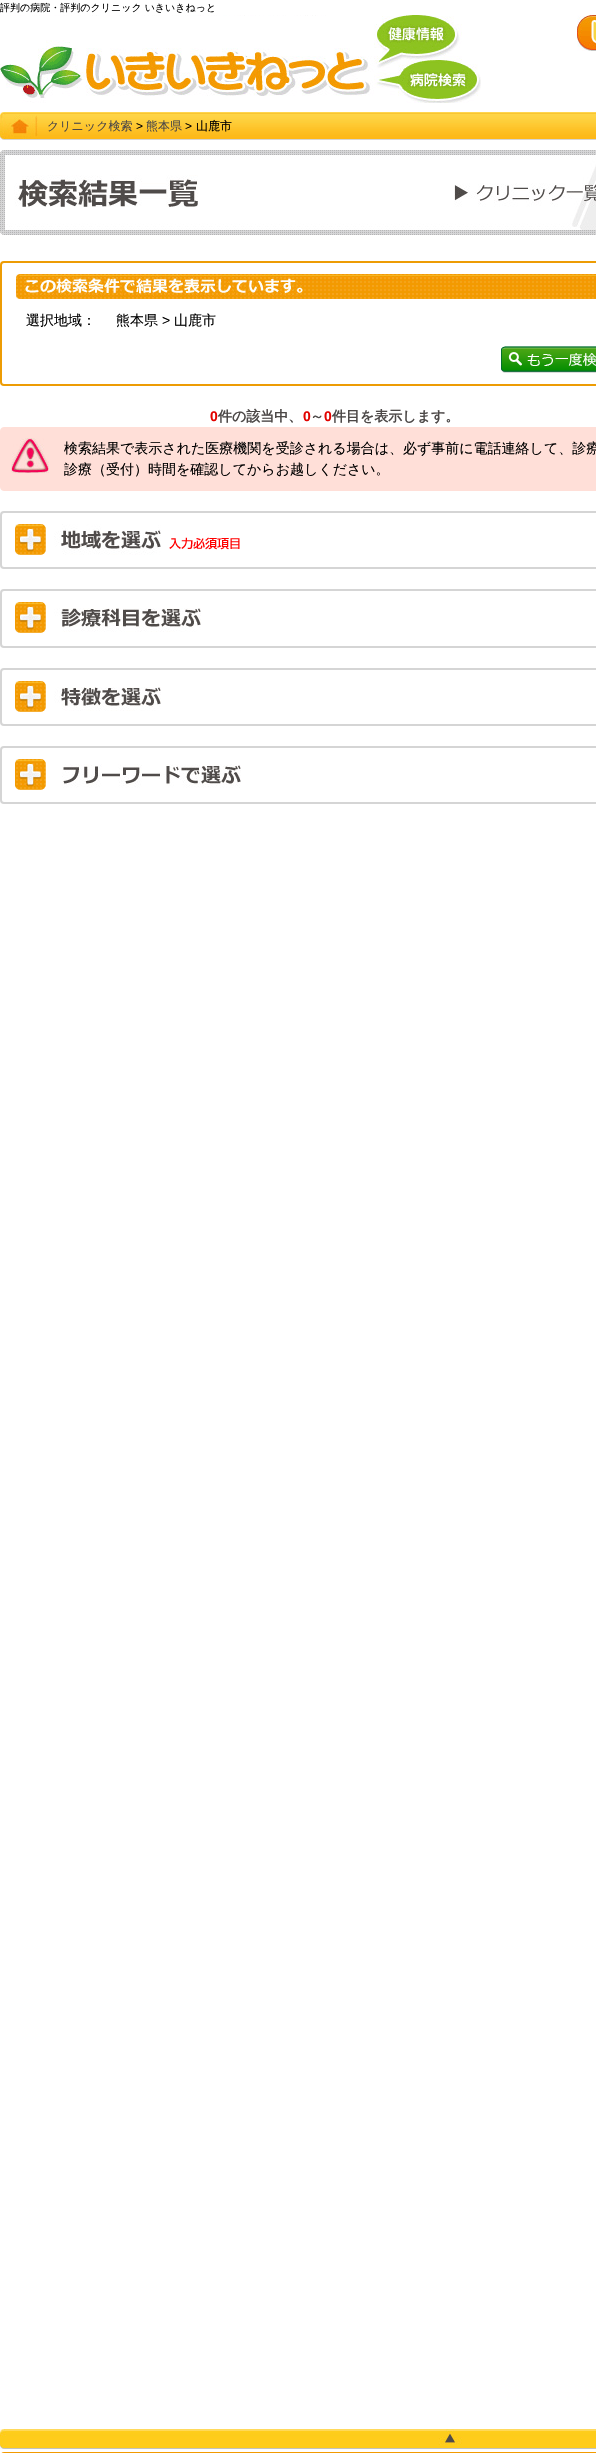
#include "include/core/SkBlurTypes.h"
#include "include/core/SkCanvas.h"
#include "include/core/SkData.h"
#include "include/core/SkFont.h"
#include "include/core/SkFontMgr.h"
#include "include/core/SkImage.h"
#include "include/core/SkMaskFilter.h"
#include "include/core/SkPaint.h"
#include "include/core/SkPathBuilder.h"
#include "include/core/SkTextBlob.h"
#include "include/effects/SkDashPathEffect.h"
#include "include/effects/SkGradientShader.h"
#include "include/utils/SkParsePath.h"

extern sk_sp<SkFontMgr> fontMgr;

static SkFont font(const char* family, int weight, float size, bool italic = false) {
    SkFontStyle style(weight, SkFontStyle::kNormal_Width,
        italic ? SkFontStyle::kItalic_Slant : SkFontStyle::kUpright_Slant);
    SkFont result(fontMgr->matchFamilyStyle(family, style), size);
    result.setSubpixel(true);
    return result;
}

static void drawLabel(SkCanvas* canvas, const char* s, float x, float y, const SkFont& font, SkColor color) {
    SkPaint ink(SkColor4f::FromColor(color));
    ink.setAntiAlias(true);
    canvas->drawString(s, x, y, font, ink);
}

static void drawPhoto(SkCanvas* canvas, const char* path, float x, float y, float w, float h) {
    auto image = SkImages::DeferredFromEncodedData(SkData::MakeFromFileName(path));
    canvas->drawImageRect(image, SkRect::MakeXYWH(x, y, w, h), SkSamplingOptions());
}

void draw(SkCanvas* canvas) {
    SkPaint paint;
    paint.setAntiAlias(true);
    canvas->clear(0xFFFFFFFF);
    SkFont font1 = font("WenQuanYi Zen Hei", 500, 10);
    drawLabel(canvas, "評判の病院・評判のクリニック いきいきねっと", 0, 11, font1, 0xFF000000);
    drawPhoto(canvas, "assets/img1.png", 0, 15, 481, 88);
    drawPhoto(canvas, "assets/img2.png", 577, 15, 19, 36);
    drawPhoto(canvas, "assets/img3.png", 0, 112, 596, 28);
    drawPhoto(canvas, "assets/img4.png", 0, 113, 37, 26);
    SkFont font2 = font("WenQuanYi Zen Hei", 500, 12);
    drawLabel(canvas, "クリニック検索", 47, 130, font2, 0xFF4C4847);
    SkFont font3 = font("Liberation Sans", 400, 12);
    drawLabel(canvas, ">", 136, 130, font3, 0xFF000000);
    drawLabel(canvas, "熊本県", 146, 130, font2, 0xFF4C4847);
    drawLabel(canvas, ">", 185, 130, font3, 0xFF000000);
    drawLabel(canvas, "山鹿市", 196, 130, font2, 0xFF000000);
    drawPhoto(canvas, "assets/img5.png", 0, 150, 596, 85);
    paint.setStroke(true);
    paint.setStrokeWidth(2);
    paint.setColor(0xFFED9C04);
    canvas->drawRoundRect(SkRect::MakeXYWH(1, 262, 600, 123), 3, 3, paint);
    drawPhoto(canvas, "assets/img6.png", 16, 274, 580, 25);
    SkFont font4 = font("WenQuanYi Zen Hei", 500, 14);
    drawLabel(canvas, "選択地域：", 26, 325, font4, 0xFF000000);
    drawLabel(canvas, "熊本県", 116, 325, font4, 0xFF000000);
    SkFont font5 = font("Liberation Sans", 400, 14);
    drawLabel(canvas, ">", 162, 325, font5, 0xFF000000);
    drawLabel(canvas, "山鹿市", 174, 325, font4, 0xFF000000);
    drawPhoto(canvas, "assets/img7.png", 501, 346, 95, 27);
    SkFont font6 = font("Liberation Sans", 700, 14);
    drawLabel(canvas, "0", 210, 421, font6, 0xFFE20300);
    SkFont font7 = font("WenQuanYi Zen Hei", 700, 14);
    drawLabel(canvas, "件の該当中、", 218, 421, font7, 0xFF4C4847);
    drawLabel(canvas, "0", 303, 421, font6, 0xFFE20300);
    drawLabel(canvas, "～", 310, 421, font7, 0xFF4C4847);
    drawLabel(canvas, "0", 324, 421, font6, 0xFFE20300);
    drawLabel(canvas, "件目を表示します。", 332, 421, font7, 0xFF4C4847);
    paint.setStroke(false);
    paint.setColor(0xFFFFDFD8);
    canvas->drawRoundRect(SkRect::MakeXYWH(0.5f, 427.5f, 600, 63), 3.5f, 3.5f, paint);
    paint.setStroke(true);
    paint.setStrokeWidth(1);
    canvas->drawRoundRect(SkRect::MakeXYWH(0.5f, 427.5f, 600, 63), 3.5f, 3.5f, paint);
    drawPhoto(canvas, "assets/img8.png", 11, 438, 38, 35);
    drawLabel(canvas, "検索結果で表示された医療機関を受診される場合は、必ず事前に電話連絡して、診療", 64, 453, font4, 0xFF000000);
    drawLabel(canvas, "診療（受付）時間を確認してからお越しください。", 64, 474, font4, 0xFF000000);
    paint.setStrokeWidth(2);
    paint.setColor(0xFFD5D5D5);
    canvas->drawRoundRect(SkRect::MakeXYWH(1, 512, 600, 56), 3, 3, paint);
    drawPhoto(canvas, "assets/img9.png", 15, 524, 225, 31);
    canvas->drawRoundRect(SkRect::MakeXYWH(1, 590, 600, 57), 3, 3, paint);
    drawPhoto(canvas, "assets/img10.png", 15, 602, 186, 31);
    canvas->drawRoundRect(SkRect::MakeXYWH(1, 669, 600, 56), 3, 3, paint);
    drawPhoto(canvas, "assets/img11.png", 15, 681, 146, 31);
    canvas->drawRoundRect(SkRect::MakeXYWH(1, 747, 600, 56), 3, 3, paint);
    drawPhoto(canvas, "assets/img12.png", 15, 759, 226, 31);
    drawPhoto(canvas, "assets/img13.png", 0, 2429, 596, 20);
    drawPhoto(canvas, "assets/img14.png", 1, 2452, 595, 1);
}
